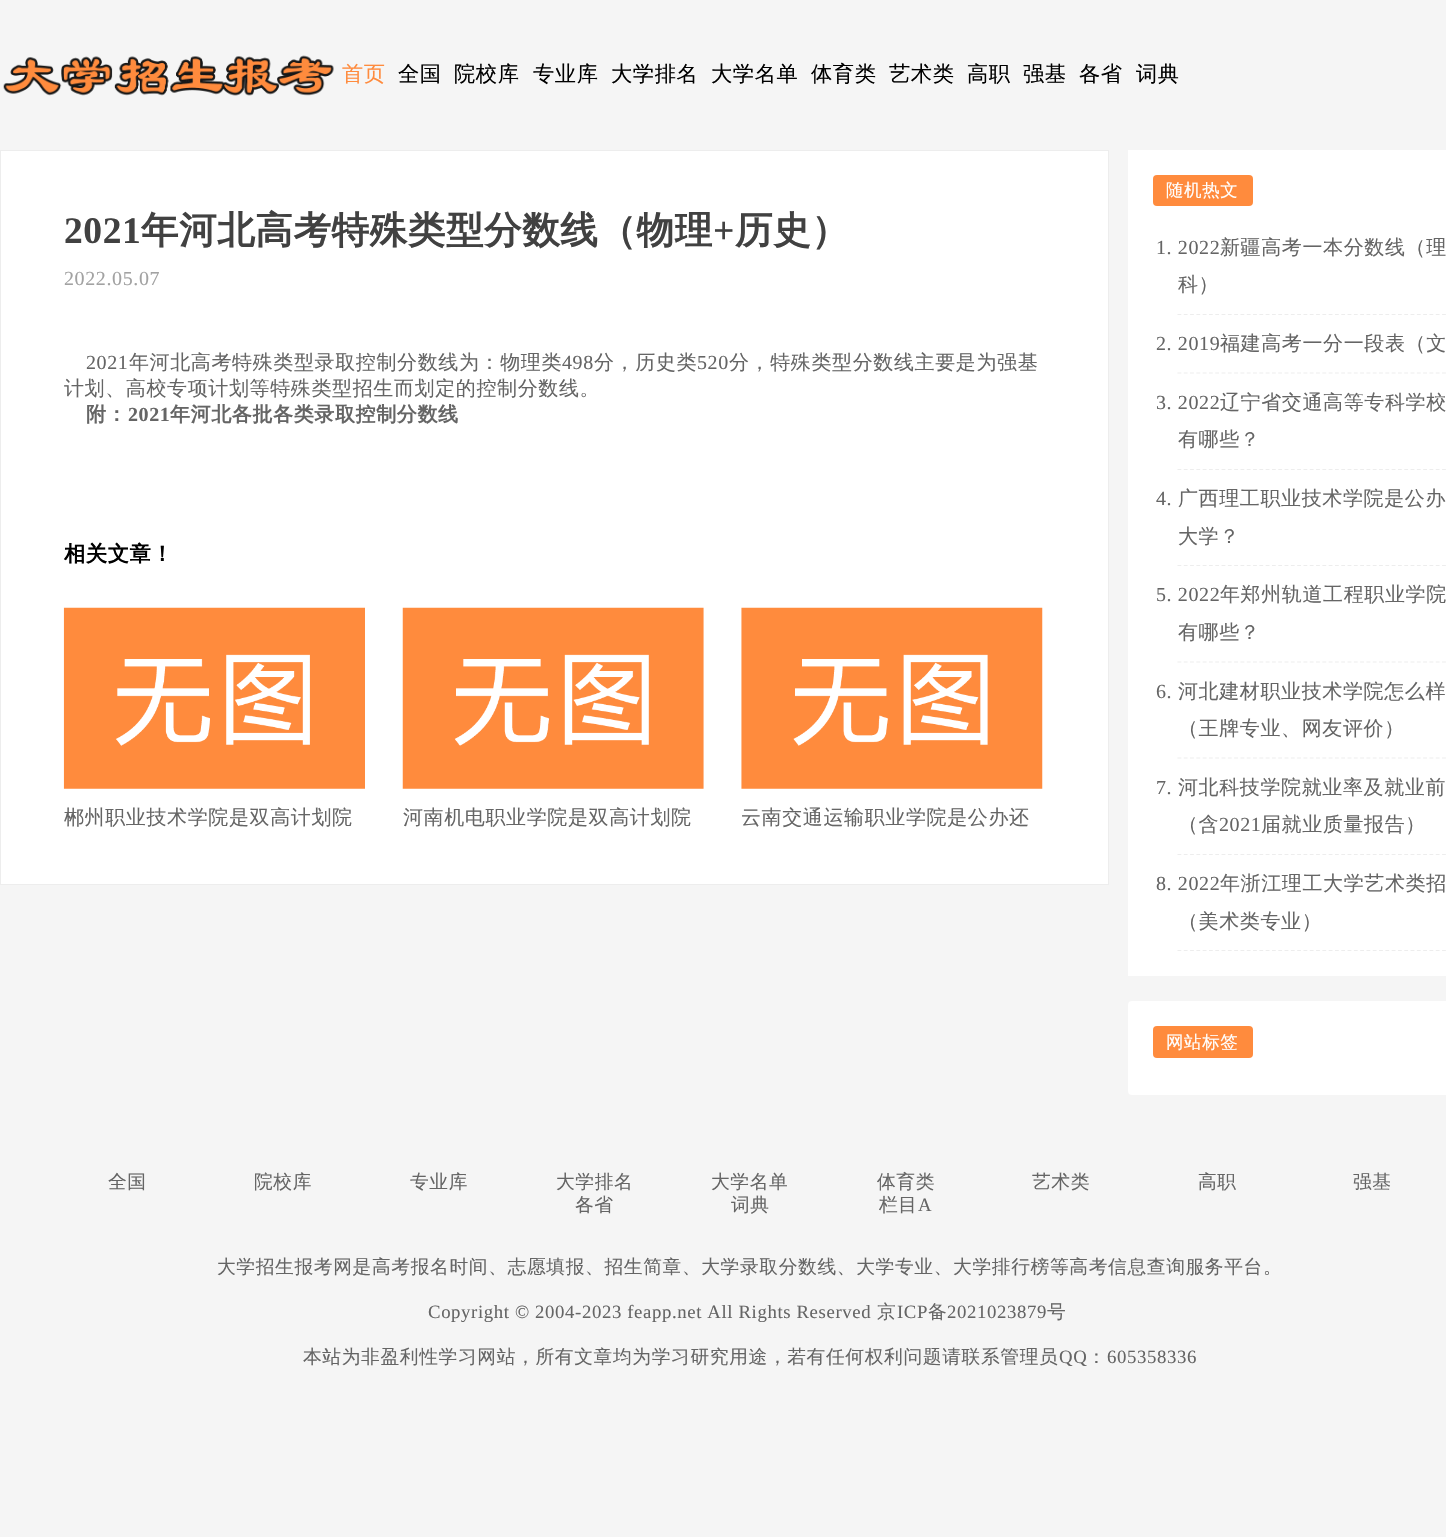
#include "include/core/SkBlurTypes.h"
#include "include/core/SkCanvas.h"
#include "include/core/SkData.h"
#include "include/core/SkFont.h"
#include "include/core/SkFontMgr.h"
#include "include/core/SkImage.h"
#include "include/core/SkMaskFilter.h"
#include "include/core/SkPaint.h"
#include "include/core/SkPathBuilder.h"
#include "include/core/SkTextBlob.h"
#include "include/effects/SkDashPathEffect.h"
#include "include/effects/SkGradientShader.h"
#include "include/utils/SkParsePath.h"

extern sk_sp<SkFontMgr> fontMgr;

static SkFont font(const char* family, int weight, float size, bool italic = false) {
    SkFontStyle style(weight, SkFontStyle::kNormal_Width,
        italic ? SkFontStyle::kItalic_Slant : SkFontStyle::kUpright_Slant);
    SkFont result(fontMgr->matchFamilyStyle(family, style), size);
    result.setSubpixel(true);
    return result;
}

static void drawTracked(SkCanvas* canvas, const char* s, float x, float y, const SkFont& font, const SkPaint& ink, float letter, float word) {
    std::vector<SkGlyphID> glyphs(font.countText(s, strlen(s), SkTextEncoding::kUTF8));
    std::vector<float> xs(glyphs.size());
    font.textToGlyphs(s, strlen(s), SkTextEncoding::kUTF8, glyphs);
    font.getXPos(glyphs, xs, x);
    float extra = 0;
    for (size_t i = 0; i < glyphs.size(); i++) {
        xs[i] += extra;
        extra += letter + word * (glyphs[i] == font.unicharToGlyph(' '));
    }
    canvas->drawTextBlob(SkTextBlob::MakeFromPosHGlyphs(glyphs, xs, y, font), 0, 0, ink);
}

static void fillRect(SkCanvas* canvas, float x, float y, float w, float h, SkColor color) {
    SkPaint ink(SkColor4f::FromColor(color));
    ink.setAntiAlias(true);
    canvas->drawRect(SkRect::MakeXYWH(x, y, w, h), ink);
}

static void fillRRect(SkCanvas* canvas, float x, float y, float w, float h, float radius, SkColor color) {
    SkPaint ink(SkColor4f::FromColor(color));
    ink.setAntiAlias(true);
    canvas->drawRoundRect(SkRect::MakeXYWH(x, y, w, h), radius, radius, ink);
}

static void drawPhoto(SkCanvas* canvas, const char* path, float x, float y, float w, float h) {
    auto image = SkImages::DeferredFromEncodedData(SkData::MakeFromFileName(path));
    canvas->drawImageRect(image, SkRect::MakeXYWH(x, y, w, h), SkSamplingOptions());
}

static SkPath parsePath(const char* data, bool evenOdd = false) {
    SkPath result = *SkParsePath::FromSVGString(data);
    if (evenOdd) result.setFillType(SkPathFillType::kEvenOdd);
    return result;
}

void draw(SkCanvas* canvas) {
    SkPaint paint;
    paint.setAntiAlias(true);
    canvas->clear(0xFFF5F5F5);
    drawPhoto(canvas, "assets/img1.png", 3, 55, 331, 41);
    SkFont font1 = font("WenQuanYi Zen Hei", 500, 21.25f);
    paint.setColor(0xFFFF8B3D);
    drawTracked(canvas, "首页", 342, 81, font1, paint, 0.62f, 0);
    paint.setColor(0xFF000000);
    drawTracked(canvas, "全国", 398, 81, font1, paint, 0.62f, 0);
    drawTracked(canvas, "院校库", 454, 81, font1, paint, 0.62f, 0);
    drawTracked(canvas, "专业库", 533, 81, font1, paint, 0.62f, 0);
    drawTracked(canvas, "大学排名", 611, 81, font1, paint, 0.62f, 0);
    drawTracked(canvas, "大学名单", 711, 81, font1, paint, 0.62f, 0);
    drawTracked(canvas, "体育类", 811, 81, font1, paint, 0.62f, 0);
    drawTracked(canvas, "艺术类", 889, 81, font1, paint, 0.62f, 0);
    drawTracked(canvas, "高职", 967, 81, font1, paint, 0.62f, 0);
    drawTracked(canvas, "强基", 1023, 81, font1, paint, 0.62f, 0);
    drawTracked(canvas, "各省", 1079, 81, font1, paint, 0.62f, 0);
    drawTracked(canvas, "词典", 1136, 81, font1, paint, 0.62f, 0);
    paint.setColor(0xFFFFFFFF);
    canvas->drawRect(SkRect::MakeXYWH(0.5f, 150.5f, 1108, 734), paint);
    paint.setStroke(true);
    paint.setStrokeWidth(1);
    paint.setColor(0xFFEDEDED);
    canvas->drawRect(SkRect::MakeXYWH(0.5f, 150.5f, 1108, 734), paint);
    SkFont font2 = font("Liberation Serif", 700, 37.5f);
    paint.setStroke(false);
    paint.setColor(0xFF414141);
    drawTracked(canvas, "2021", 64, 243, font2, paint, 0.62f, 0);
    SkFont font3 = font("WenQuanYi Zen Hei", 700, 37.5f);
    drawTracked(canvas, "年河北高考特殊类型分数线（物理", 141, 243, font3, paint, 0.62f, 0);
    drawTracked(canvas, "+", 713, 243, font2, paint, 0.62f, 0);
    drawTracked(canvas, "历史）", 735, 243, font3, paint, 0.62f, 0);
    SkFont font4 = font("Liberation Serif", 400, 20);
    paint.setColor(0xFFA2A2A2);
    drawTracked(canvas, "2022.05.07", 64, 285, font4, paint, 0.62f, 0);
    paint.setColor(0xFF656565);
    drawTracked(canvas, "2021", 86, 369, font4, paint, 0.62f, 0);
    SkFont font5 = font("WenQuanYi Zen Hei", 500, 20);
    drawTracked(canvas, "年河北高考特殊类型录取控制分数线为：物理类", 129, 369, font5, paint, 0.62f, 0);
    drawTracked(canvas, "498", 562, 369, font4, paint, 0.62f, 0);
    drawTracked(canvas, "分，历史类", 594, 369, font5, paint, 0.62f, 0);
    drawTracked(canvas, "520", 697, 369, font4, paint, 0.62f, 0);
    drawTracked(canvas, "分，特殊类型分数线主要是为强基", 729, 369, font5, paint, 0.62f, 0);
    drawTracked(canvas, "计划、高校专项计划等特殊类型招生而划定的控制分数线。", 64, 395, font5, paint, 0.62f, 0);
    SkFont font6 = font("WenQuanYi Zen Hei", 700, 20);
    drawTracked(canvas, "附：", 86, 421, font6, paint, 0.62f, 0);
    SkFont font7 = font("Liberation Serif", 700, 20);
    drawTracked(canvas, "2021", 128, 421, font7, paint, 0.62f, 0);
    drawTracked(canvas, "年河北各批各类录取控制分数线", 170, 421, font6, paint, 0.62f, 0);
    SkFont font8 = font("WenQuanYi Zen Hei", 700, 21.25f);
    paint.setColor(0xFF000000);
    drawTracked(canvas, "相关文章！", 64, 561, font8, paint, 0.62f, 0);
    drawPhoto(canvas, "assets/img2.png", 63, 607, 302, 182);
    paint.setColor(0xFF656565);
    drawTracked(canvas, "郴州职业技术学院是双高计划院", 64, 824, font5, paint, 0.62f, 0);
    drawPhoto(canvas, "assets/img3.png", 402, 607, 302, 182);
    drawTracked(canvas, "河南机电职业学院是双高计划院", 403, 824, font5, paint, 0.62f, 0);
    drawPhoto(canvas, "assets/img4.png", 741, 607, 302, 182);
    drawTracked(canvas, "云南交通运输职业学院是公办还", 741, 824, font5, paint, 0.62f, 0);
    fillRect(canvas, 1128, 150, 318, 826, 0xFFFFFFFF);
    fillRRect(canvas, 1153, 175, 100, 31, 4, 0xFFFF8B3D);
    SkFont font9 = font("WenQuanYi Zen Hei", 500, 17.5f);
    paint.setColor(0xFFFFFFFF);
    drawTracked(canvas, "随机热文", 1166, 196, font9, paint, 0.62f, 0);
    paint.setStroke(true);
    paint.setStrokeWidth(1.2f);
    paint.setColor(0xFFEDEDED);
    paint.setPathEffect(SkDashPathEffect::Make({{3.75f, 2.55f}}, 0));
    canvas->drawPath(parsePath("M1177.5 314.5H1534"), paint);
    paint.setPathEffect(nullptr);
    paint.setStroke(false);
    paint.setColor(0xFF656565);
    drawTracked(canvas, "新疆高考一本分数线（理", 1220, 254, font5, paint, 0.62f, 0);
    drawTracked(canvas, "科）", 1178, 291, font5, paint, 0.62f, 0);
    drawTracked(canvas, "1. 2022", 1156, 254, font4, paint, 0.62f, 0);
    paint.setStroke(true);
    paint.setColor(0xFFEDEDED);
    paint.setPathEffect(SkDashPathEffect::Make({{3.75f, 2.55f}}, 0));
    canvas->drawPath(parsePath("M1177.5 373H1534"), paint);
    paint.setPathEffect(nullptr);
    paint.setStroke(false);
    paint.setColor(0xFF656565);
    drawTracked(canvas, "2. 2019", 1156, 350, font4, paint, 0.62f, 0);
    drawTracked(canvas, "福建高考一分一段表（文", 1220, 350, font5, paint, 0.62f, 0);
    paint.setStroke(true);
    paint.setColor(0xFFEDEDED);
    paint.setPathEffect(SkDashPathEffect::Make({{3.75f, 2.55f}}, 0));
    canvas->drawPath(parsePath("M1177.5 469.5H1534"), paint);
    paint.setPathEffect(nullptr);
    paint.setStroke(false);
    paint.setColor(0xFF656565);
    drawTracked(canvas, "辽宁省交通高等专科学校", 1220, 409, font5, paint, 0.62f, 0);
    drawTracked(canvas, "有哪些？", 1178, 446, font5, paint, 0.62f, 0);
    drawTracked(canvas, "3. 2022", 1156, 409, font4, paint, 0.62f, 0);
    paint.setStroke(true);
    paint.setColor(0xFFEDEDED);
    paint.setPathEffect(SkDashPathEffect::Make({{3.75f, 2.55f}}, 0));
    canvas->drawPath(parsePath("M1177.5 565.5H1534"), paint);
    paint.setPathEffect(nullptr);
    paint.setStroke(false);
    paint.setColor(0xFF656565);
    drawTracked(canvas, "4.", 1156, 505, font4, paint, 0.62f, 0);
    drawTracked(canvas, "广西理工职业技术学院是公办", 1178, 505, font5, paint, 0.62f, 0);
    drawTracked(canvas, "大学？", 1178, 543, font5, paint, 0.62f, 0);
    paint.setStroke(true);
    paint.setColor(0xFFEDEDED);
    paint.setPathEffect(SkDashPathEffect::Make({{3.75f, 2.55f}}, 0));
    canvas->drawPath(parsePath("M1177.5 662H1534"), paint);
    paint.setPathEffect(nullptr);
    paint.setStroke(false);
    paint.setColor(0xFF656565);
    drawTracked(canvas, "年郑州轨道工程职业学院", 1220, 601, font5, paint, 0.62f, 0);
    drawTracked(canvas, "有哪些？", 1178, 639, font5, paint, 0.62f, 0);
    drawTracked(canvas, "5. 2022", 1156, 601, font4, paint, 0.62f, 0);
    paint.setStroke(true);
    paint.setColor(0xFFEDEDED);
    paint.setPathEffect(SkDashPathEffect::Make({{3.75f, 2.55f}}, 0));
    canvas->drawPath(parsePath("M1177.5 758H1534"), paint);
    paint.setPathEffect(nullptr);
    paint.setStroke(false);
    paint.setColor(0xFF656565);
    drawTracked(canvas, "6.", 1156, 698, font4, paint, 0.62f, 0);
    drawTracked(canvas, "河北建材职业技术学院怎么样", 1178, 698, font5, paint, 0.62f, 0);
    drawTracked(canvas, "（王牌专业、网友评价）", 1178, 735, font5, paint, 0.62f, 0);
    paint.setStroke(true);
    paint.setColor(0xFFEDEDED);
    paint.setPathEffect(SkDashPathEffect::Make({{3.75f, 2.55f}}, 0));
    canvas->drawPath(parsePath("M1177.5 854.5H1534"), paint);
    paint.setPathEffect(nullptr);
    paint.setStroke(false);
    paint.setColor(0xFF656565);
    drawTracked(canvas, "7.", 1156, 794, font4, paint, 0.62f, 0);
    drawTracked(canvas, "河北科技学院就业率及就业前", 1178, 794, font5, paint, 0.62f, 0);
    drawTracked(canvas, "（含", 1178, 831, font5, paint, 0.62f, 0);
    drawTracked(canvas, "2021", 1219, 831, font4, paint, 0.62f, 0);
    drawTracked(canvas, "届就业质量报告）", 1261, 831, font5, paint, 0.62f, 0);
    paint.setStroke(true);
    paint.setColor(0xFFEDEDED);
    paint.setPathEffect(SkDashPathEffect::Make({{3.75f, 2.55f}}, 0));
    canvas->drawPath(parsePath("M1177.5 950.5H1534"), paint);
    paint.setPathEffect(nullptr);
    paint.setStroke(false);
    paint.setColor(0xFF656565);
    drawTracked(canvas, "8. 2022", 1156, 890, font4, paint, 0.62f, 0);
    drawTracked(canvas, "年浙江理工大学艺术类招", 1220, 890, font5, paint, 0.62f, 0);
    drawTracked(canvas, "（美术类专业）", 1178, 928, font5, paint, 0.62f, 0);
    fillRRect(canvas, 1128, 1001, 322, 94, 4, 0xFFFFFFFF);
    fillRRect(canvas, 1153, 1026, 100, 32, 4, 0xFFFF8B3D);
    paint.setColor(0xFFFFFFFF);
    drawTracked(canvas, "网站标签", 1166, 1048, font9, paint, 0.62f, 0);
    SkFont font10 = font("WenQuanYi Zen Hei", 500, 18.75f);
    paint.setColor(0xFF656565);
    drawTracked(canvas, "全国", 108, 1188, font10, paint, 0.62f, 0);
    drawTracked(canvas, "院校库", 254, 1188, font10, paint, 0.62f, 0);
    drawTracked(canvas, "专业库", 410, 1188, font10, paint, 0.62f, 0);
    drawTracked(canvas, "大学排名", 556, 1188, font10, paint, 0.62f, 0);
    drawTracked(canvas, "大学名单", 711, 1188, font10, paint, 0.62f, 0);
    drawTracked(canvas, "体育类", 877, 1188, font10, paint, 0.62f, 0);
    drawTracked(canvas, "艺术类", 1032, 1188, font10, paint, 0.62f, 0);
    drawTracked(canvas, "高职", 1198, 1188, font10, paint, 0.62f, 0);
    drawTracked(canvas, "强基", 1353, 1188, font10, paint, 0.62f, 0);
    drawTracked(canvas, "各省", 575, 1211, font10, paint, 0.62f, 0);
    drawTracked(canvas, "词典", 731, 1211, font10, paint, 0.62f, 0);
    drawTracked(canvas, "栏目", 879, 1211, font10, paint, 0.62f, 0);
    SkFont font11 = font("Liberation Serif", 400, 18.75f);
    drawTracked(canvas, "A", 918, 1211, font11, paint, 0.62f, 0);
    drawTracked(canvas, "大学招生报考网是高考报名时间、志愿填报、招生简章、大学录取分数线、大学专业、大学排行榜等高考信息查询服务平台。", 217, 1273, font10, paint, 0.62f, 0);
    drawTracked(canvas, "Copyright © 2004-2023 feapp.net All Rights Reserved", 428, 1318, font11, paint, 0.62f, 0);
    drawTracked(canvas, "京", 877, 1318, font10, paint, 0.62f, 0);
    drawTracked(canvas, "ICP", 897, 1318, font11, paint, 0.62f, 0);
    drawTracked(canvas, "备", 928, 1318, font10, paint, 0.62f, 0);
    drawTracked(canvas, "2021023879", 947, 1318, font11, paint, 0.62f, 0);
    drawTracked(canvas, "号", 1047, 1318, font10, paint, 0.62f, 0);
    drawTracked(canvas, "本站为非盈利性学习网站，所有文章均为学习研究用途，若有任何权利问题请联系管理员", 303, 1363, font10, paint, 0.62f, 0);
    drawTracked(canvas, "QQ", 1059, 1363, font11, paint, 0.62f, 0);
    drawTracked(canvas, "：", 1087, 1363, font10, paint, 0.62f, 0);
    drawTracked(canvas, "605358336", 1107, 1363, font11, paint, 0.62f, 0);
}
